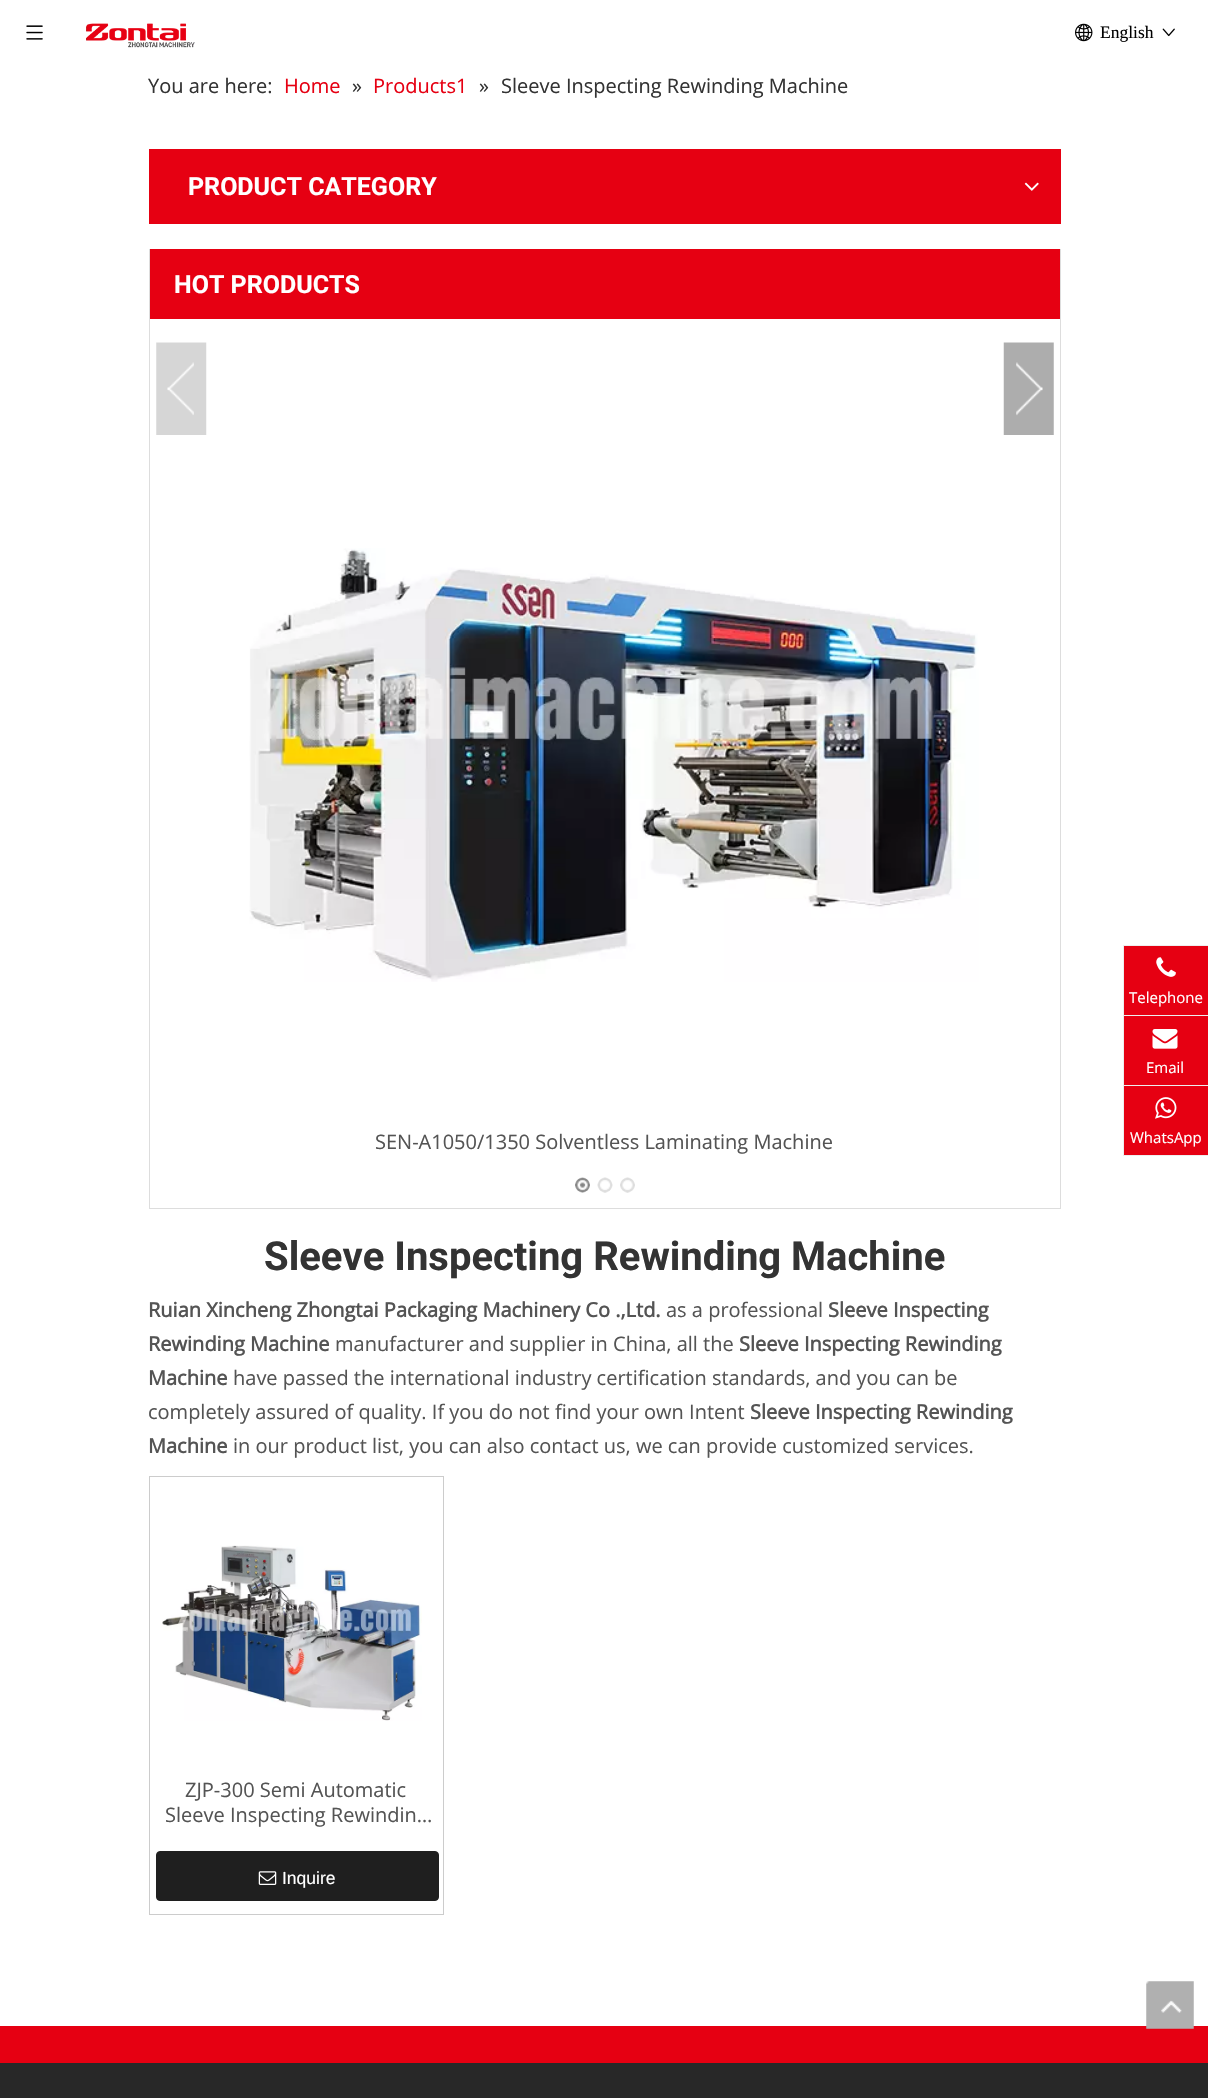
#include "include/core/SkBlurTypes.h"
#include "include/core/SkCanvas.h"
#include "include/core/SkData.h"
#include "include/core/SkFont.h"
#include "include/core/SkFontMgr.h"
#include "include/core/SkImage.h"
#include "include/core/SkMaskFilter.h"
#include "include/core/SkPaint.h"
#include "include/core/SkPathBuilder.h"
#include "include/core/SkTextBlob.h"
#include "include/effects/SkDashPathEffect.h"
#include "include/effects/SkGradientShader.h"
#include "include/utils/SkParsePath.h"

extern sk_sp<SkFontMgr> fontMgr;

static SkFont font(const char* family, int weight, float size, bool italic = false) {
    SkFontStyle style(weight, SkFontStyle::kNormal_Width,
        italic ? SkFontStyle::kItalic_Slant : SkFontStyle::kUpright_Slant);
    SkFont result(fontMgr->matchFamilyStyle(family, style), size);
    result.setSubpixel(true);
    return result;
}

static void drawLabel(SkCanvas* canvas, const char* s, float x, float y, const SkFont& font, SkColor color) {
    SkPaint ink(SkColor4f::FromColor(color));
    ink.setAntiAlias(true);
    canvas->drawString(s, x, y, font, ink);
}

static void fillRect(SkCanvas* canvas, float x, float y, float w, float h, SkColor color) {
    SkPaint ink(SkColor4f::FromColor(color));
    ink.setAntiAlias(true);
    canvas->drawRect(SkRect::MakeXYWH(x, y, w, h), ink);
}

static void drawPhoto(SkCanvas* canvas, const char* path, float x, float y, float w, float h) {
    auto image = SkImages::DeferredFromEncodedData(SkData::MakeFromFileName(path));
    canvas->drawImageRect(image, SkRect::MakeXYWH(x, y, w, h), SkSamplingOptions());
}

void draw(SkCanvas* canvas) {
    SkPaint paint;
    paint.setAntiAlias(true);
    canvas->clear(0xFFFFFFFF);
    drawPhoto(canvas, "assets/img1.png", 26, 25, 17, 15);
    drawPhoto(canvas, "assets/img2.png", 86, 23, 109, 25);
    drawPhoto(canvas, "assets/img3.png", 1075, 23, 18, 19);
    SkFont font1 = font("Liberation Serif", 400, 17.5f);
    drawLabel(canvas, "English", 1100, 38, font1, 0xFF000000);
    drawPhoto(canvas, "assets/img4.png", 1162, 28, 13, 9);
    SkFont font2 = font("Open Sans", 400, 20);
    drawLabel(canvas, "You are here:", 148, 93, font2, 0xFF333333);
    drawLabel(canvas, "Home", 284, 93, font2, 0xFFE60012);
    drawLabel(canvas, "»", 352, 93, font2, 0xFF333333);
    drawLabel(canvas, "Products1", 373, 93, font2, 0xFFE60012);
    drawLabel(canvas, "»", 479, 93, font2, 0xFF333333);
    drawLabel(canvas, "Sleeve Inspecting Rewinding Machine", 501, 93, font2, 0xFF333333);
    fillRect(canvas, 149, 149, 912, 75, 0xFFE60012);
    SkFont font3 = font("Roboto", 700, 25);
    drawLabel(canvas, "PRODUCT CATEGORY", 188, 195, font3, 0xFFFFFFFF);
    drawPhoto(canvas, "assets/img5.png", 1024, 182, 15, 9);
    fillRect(canvas, 1060, 249, 1, 960, 0xFFDDDDDD);
    fillRect(canvas, 149, 1208, 912, 1, 0xFFDDDDDD);
    fillRect(canvas, 149, 249, 1, 960, 0xFFDDDDDD);
    fillRect(canvas, 150, 249, 910, 70, 0xFFE60012);
    drawLabel(canvas, "HOT PRODUCTS", 174, 293, font3, 0xFFFFFFFF);
    drawPhoto(canvas, "assets/img6.png", 156, 342, 51, 93);
    drawPhoto(canvas, "assets/img7.png", 1003, 342, 51, 93);
    drawPhoto(canvas, "assets/img8.png", 575, 1177, 15, 16);
    drawPhoto(canvas, "assets/img9.png", 597, 1177, 16, 16);
    drawPhoto(canvas, "assets/img10.png", 620, 1177, 15, 16);
    drawPhoto(canvas, "assets/img11.png", 249, 548, 730, 434);
    drawLabel(canvas, "SEN-A1050/1350 Solventless Laminating Machine", 375, 1149, font2, 0xFF545454);
    SkFont font4 = font("Roboto", 700, 40);
    drawLabel(canvas, "Sleeve Inspecting Rewinding Machine", 264, 1270, font4, 0xFF333333);
    SkFont font5 = font("Open Sans", 700, 20);
    drawLabel(canvas, "Ruian Xincheng Zhongtai Packaging Machinery Co .,Ltd.", 148, 1317, font5, 0xFF545454);
    drawLabel(canvas, "as a professional", 666, 1317, font2, 0xFF545454);
    drawLabel(canvas, "Sleeve Inspecting", 828, 1317, font5, 0xFF545454);
    drawLabel(canvas, "Rewinding Machine", 148, 1351, font5, 0xFF545454);
    drawLabel(canvas, "manufacturer and supplier in China, all the", 335, 1351, font2, 0xFF545454);
    drawLabel(canvas, "Sleeve Inspecting Rewinding", 739, 1351, font5, 0xFF545454);
    drawLabel(canvas, "Machine", 148, 1385, font5, 0xFF545454);
    drawLabel(canvas, "have passed the international industry certification standards, and you can be", 233, 1385, font2, 0xFF545454);
    drawLabel(canvas, "completely assured of quality. If you do not find your own Intent", 148, 1419, font2, 0xFF545454);
    drawLabel(canvas, "Sleeve Inspecting Rewinding", 750, 1419, font5, 0xFF545454);
    drawLabel(canvas, "Machine", 148, 1453, font5, 0xFF545454);
    drawLabel(canvas, "in our product list, you can also contact us, we can provide customized services.", 233, 1453, font2, 0xFF545454);
    paint.setStroke(true);
    paint.setStrokeWidth(1);
    paint.setColor(0xFFCCCCCC);
    canvas->drawRect(SkRect::MakeXYWH(149.5f, 1476.5f, 294, 438), paint);
    drawPhoto(canvas, "assets/img12.png", 162, 1545, 260, 176);
    drawLabel(canvas, "ZJP-300 Semi Automatic", 185, 1797, font2, 0xFF545454);
    drawLabel(canvas, "Sleeve Inspecting Rewindin…", 165, 1822, font2, 0xFF545454);
    paint.setStroke(false);
    paint.setColor(0xFF1F1F1F);
    canvas->drawRoundRect(SkRect::MakeXYWH(156.5f, 1851.5f, 282, 49), 3.5f, 3.5f, paint);
    paint.setStroke(true);
    canvas->drawRoundRect(SkRect::MakeXYWH(156.5f, 1851.5f, 282, 49), 3.5f, 3.5f, paint);
    drawPhoto(canvas, "assets/img13.png", 258, 1871, 19, 14);
    SkFont font6 = font("Liberation Sans", 400, 17.5f);
    drawLabel(canvas, "Inquire", 282, 1884, font6, 0xFFFFFFFF);
    fillRect(canvas, 1124, 946, 84, 69, 0xFFE60012);
    fillRect(canvas, 1123, 945, 85, 1, 0xFFEEEEEE);
    fillRect(canvas, 1123, 945, 1, 70, 0xFFEEEEEE);
    drawPhoto(canvas, "assets/img14.png", 1156, 957, 20, 20);
    SkFont font7 = font("Open Sans", 400, 15);
    drawLabel(canvas, "Telephone", 1129, 1003, font7, 0xFFFFFFFF);
    fillRect(canvas, 1124, 1016, 84, 69, 0xFFE60012);
    fillRect(canvas, 1123, 1015, 85, 1, 0xFFEEEEEE);
    fillRect(canvas, 1123, 1015, 1, 70, 0xFFEEEEEE);
    drawPhoto(canvas, "assets/img15.png", 1152, 1029, 26, 20);
    drawLabel(canvas, "Email", 1146, 1073, font7, 0xFFFFFFFF);
    paint.setStroke(false);
    paint.setColor(0xFFE60012);
    canvas->drawRect(SkRect::MakeXYWH(1123.5f, 1085.5f, 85, 70), paint);
    paint.setStroke(true);
    paint.setColor(0xFFEEEEEE);
    canvas->drawRect(SkRect::MakeXYWH(1123.5f, 1085.5f, 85, 70), paint);
    drawPhoto(canvas, "assets/img16.png", 1155, 1097, 22, 22);
    drawLabel(canvas, "WhatsApp", 1130, 1143, font7, 0xFFFFFFFF);
    fillRect(canvas, 0, 2026, 1208, 37, 0xFFE60012);
    fillRect(canvas, 0, 2063, 1208, 35, 0xFF282828);
    drawPhoto(canvas, "assets/img17.png", 1146, 1981, 48, 48);
}
